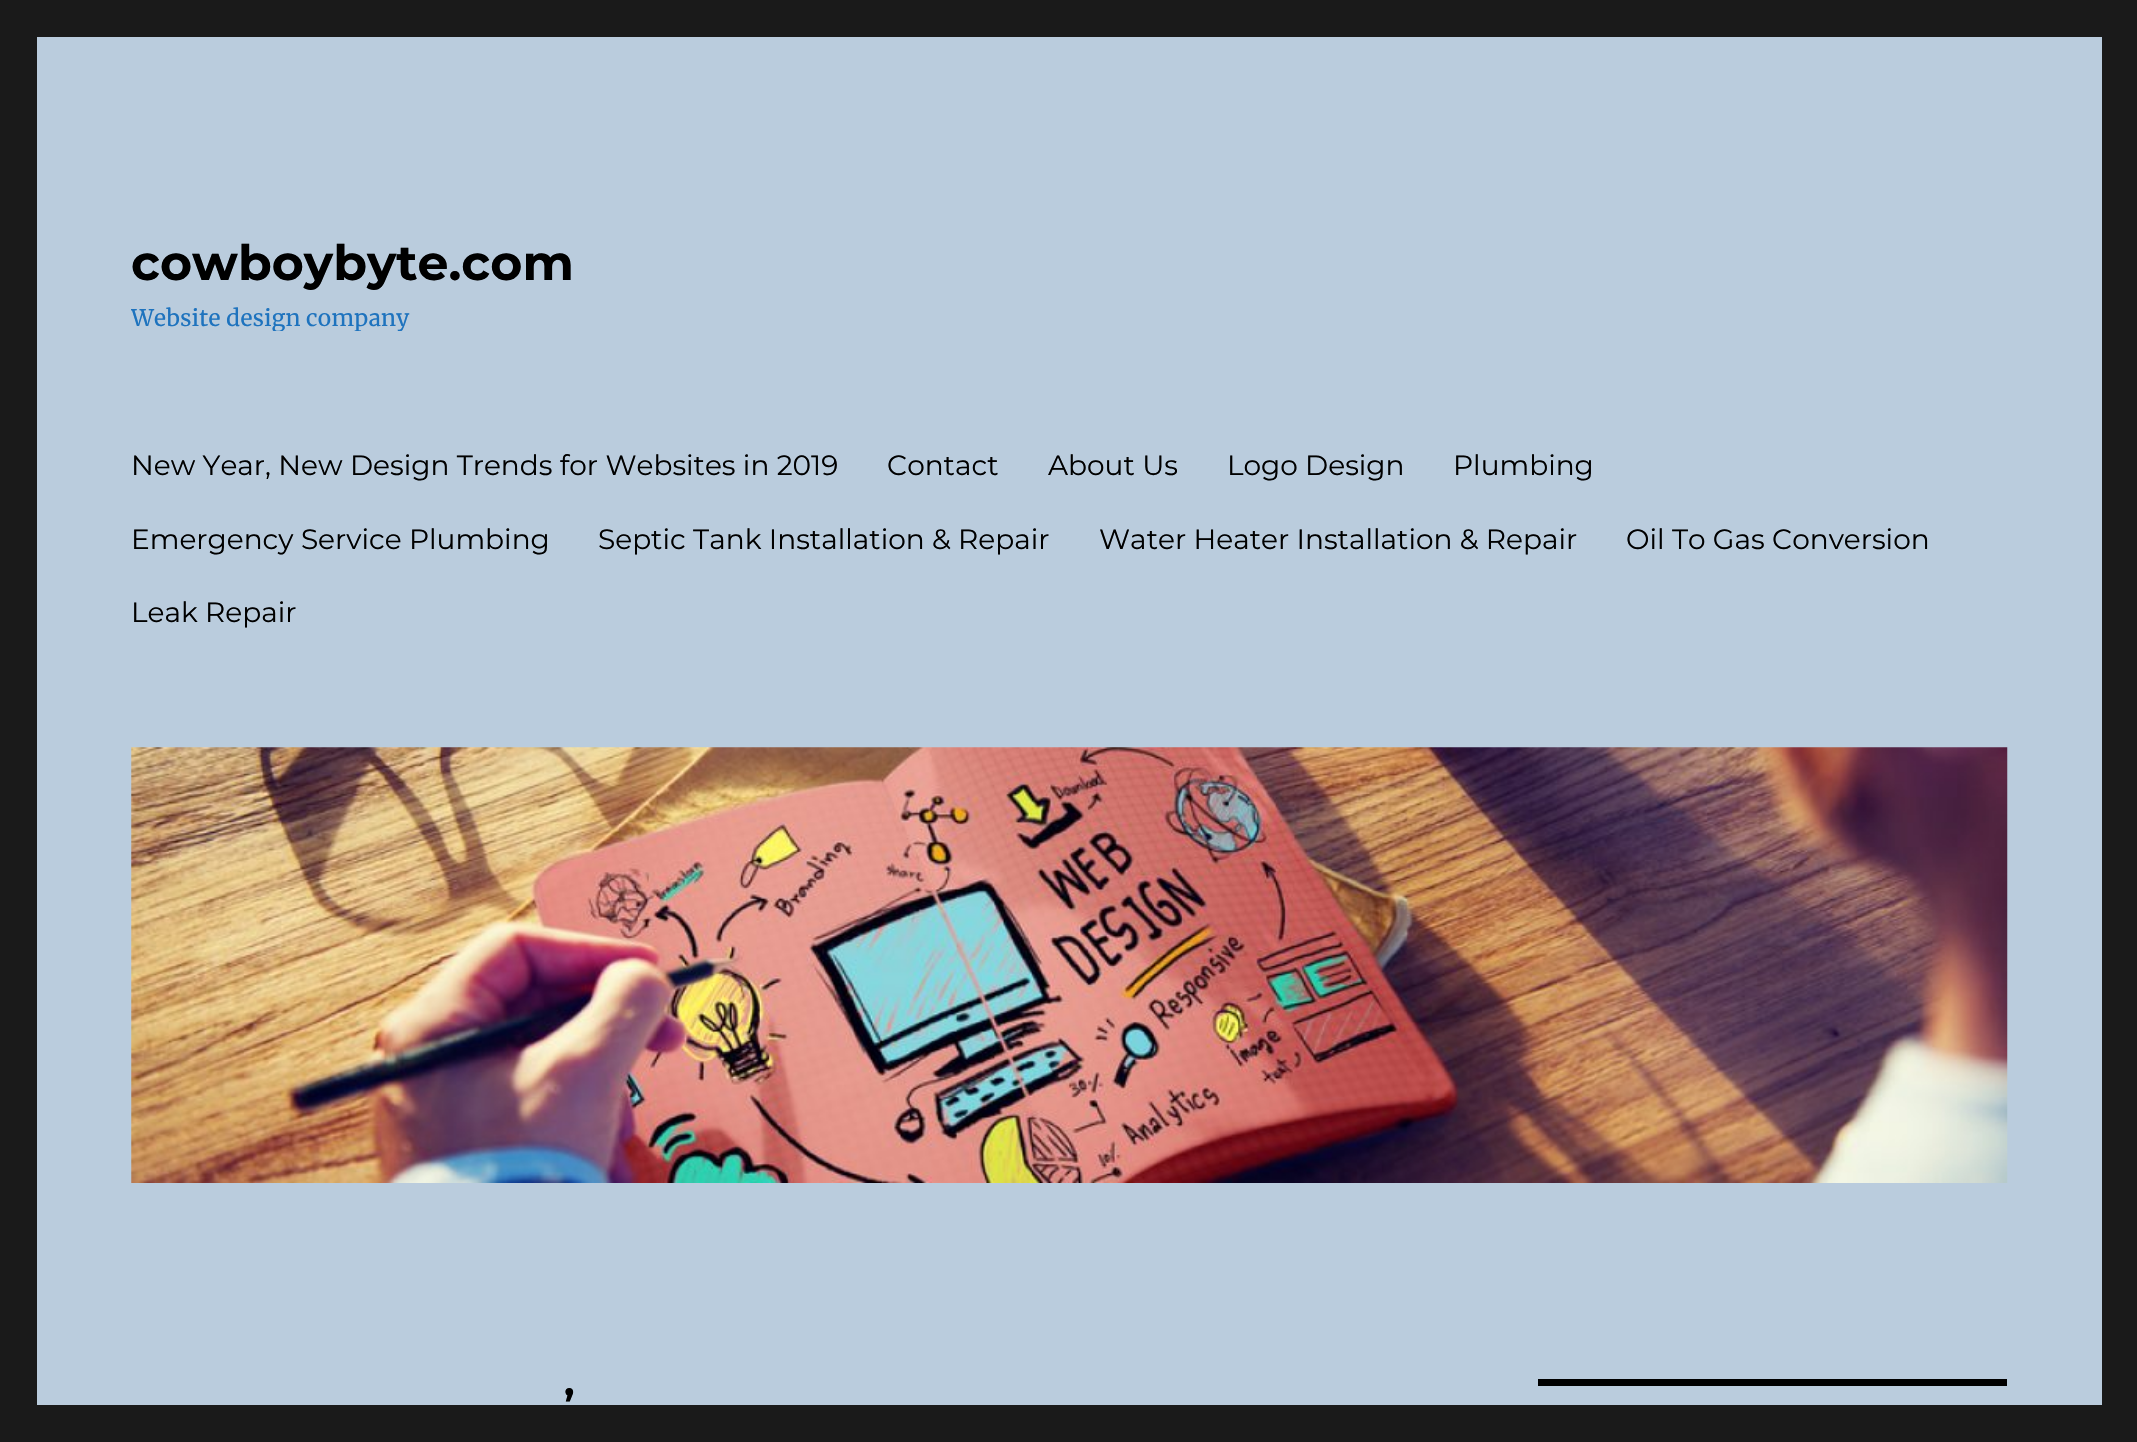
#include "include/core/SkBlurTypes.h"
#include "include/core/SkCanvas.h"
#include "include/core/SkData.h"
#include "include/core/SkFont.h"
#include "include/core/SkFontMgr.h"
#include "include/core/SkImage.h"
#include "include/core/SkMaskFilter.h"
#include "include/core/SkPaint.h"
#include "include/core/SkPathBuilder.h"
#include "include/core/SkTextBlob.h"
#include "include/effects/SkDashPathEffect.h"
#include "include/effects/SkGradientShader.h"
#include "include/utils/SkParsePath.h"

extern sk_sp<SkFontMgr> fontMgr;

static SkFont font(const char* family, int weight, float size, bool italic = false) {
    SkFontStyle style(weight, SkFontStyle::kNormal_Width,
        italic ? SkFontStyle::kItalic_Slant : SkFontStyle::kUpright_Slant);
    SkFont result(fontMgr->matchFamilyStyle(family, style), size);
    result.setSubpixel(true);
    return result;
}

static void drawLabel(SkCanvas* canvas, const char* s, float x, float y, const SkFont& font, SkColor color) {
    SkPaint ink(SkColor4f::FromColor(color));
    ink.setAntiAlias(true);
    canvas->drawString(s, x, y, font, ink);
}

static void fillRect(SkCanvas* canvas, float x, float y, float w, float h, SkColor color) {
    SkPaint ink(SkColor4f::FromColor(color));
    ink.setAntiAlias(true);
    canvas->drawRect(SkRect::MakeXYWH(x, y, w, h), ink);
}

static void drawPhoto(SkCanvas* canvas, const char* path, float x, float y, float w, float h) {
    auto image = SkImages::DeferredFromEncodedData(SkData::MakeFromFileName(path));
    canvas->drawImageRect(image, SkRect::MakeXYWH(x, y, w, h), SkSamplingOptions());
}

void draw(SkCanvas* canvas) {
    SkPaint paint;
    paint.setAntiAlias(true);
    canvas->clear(0xFF1A1A1A);
    fillRect(canvas, 37, 37, 2065, 1368, 0xFFBACCDD);
    SkFont font1 = font("Montserrat", 100, 49);
    drawLabel(canvas, "cowboybyte.com", 131, 280, font1, 0xFF000000);
    canvas->save();
    canvas->clipRect(SkRect::MakeXYWH(131, 233, 443, 98));
    SkFont font2 = font("Merriweather", 400, 22.75f);
    drawLabel(canvas, "Website design company", 131, 326, font2, 0xFF1E73BE);
    canvas->restore();
    SkFont font3 = font("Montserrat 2", 100, 28);
    drawLabel(canvas, "New Year, New Design Trends for Websites in 2019", 131, 475, font3, 0xFF000000);
    drawLabel(canvas, "Contact", 887, 475, font3, 0xFF000000);
    drawLabel(canvas, "About Us", 1048, 475, font3, 0xFF000000);
    drawLabel(canvas, "Logo Design", 1227, 475, font3, 0xFF000000);
    drawLabel(canvas, "Plumbing", 1453, 475, font3, 0xFF000000);
    drawLabel(canvas, "Emergency Service Plumbing", 131, 549, font3, 0xFF000000);
    drawLabel(canvas, "Septic Tank Installation & Repair", 598, 549, font3, 0xFF000000);
    drawLabel(canvas, "Water Heater Installation & Repair", 1099, 549, font3, 0xFF000000);
    drawLabel(canvas, "Oil To Gas Conversion", 1626, 549, font3, 0xFF000000);
    drawLabel(canvas, "Leak Repair", 131, 622, font3, 0xFF000000);
    drawPhoto(canvas, "assets/img1.png", 131, 747, 1877, 436);
    fillRect(canvas, 1538, 1379, 469, 7, 0xFF000000);
    SkFont font4 = font("Montserrat", 100, 40);
    drawLabel(canvas, "’", 564, 1418, font4, 0xFF000000);
}
